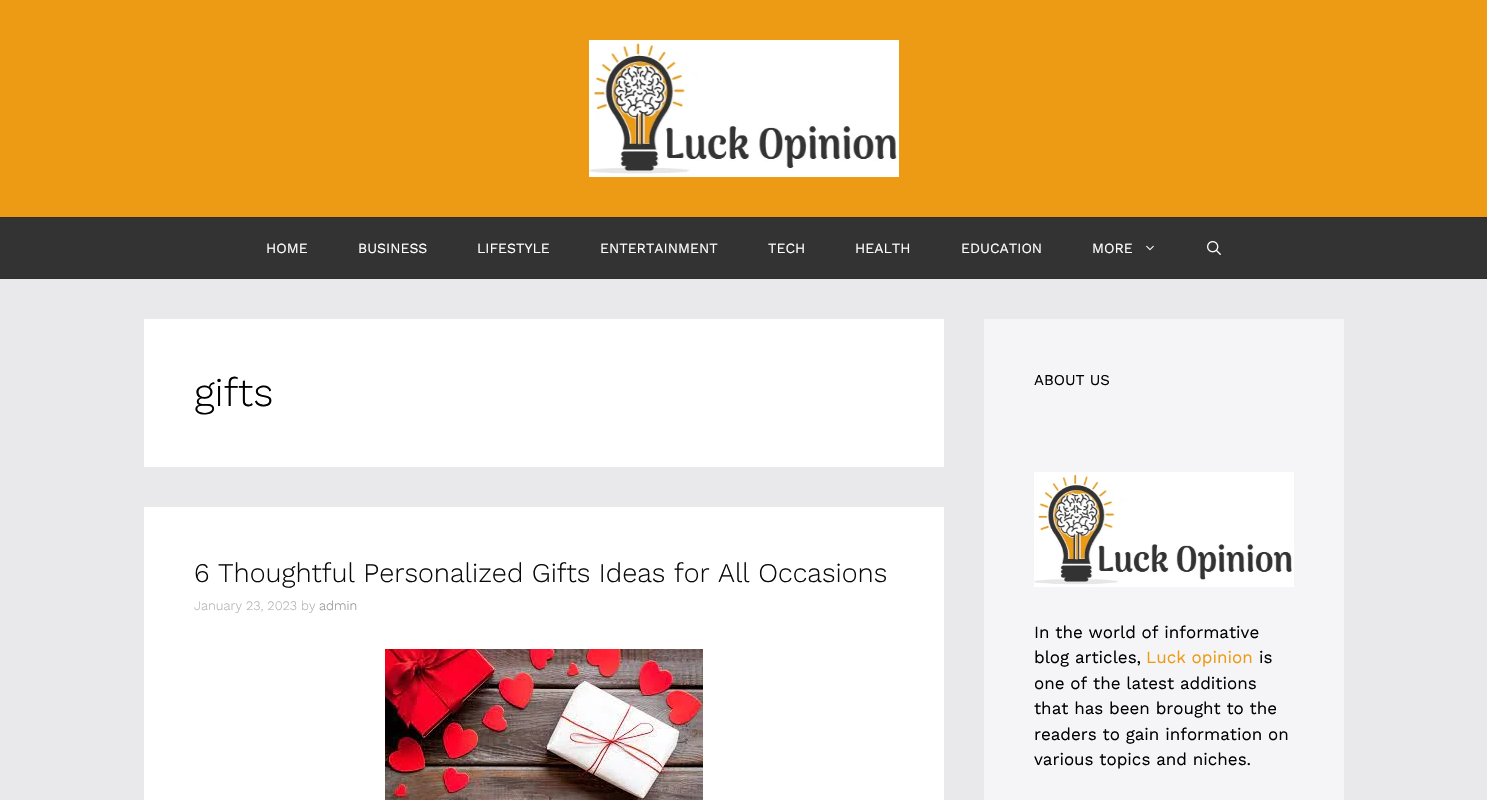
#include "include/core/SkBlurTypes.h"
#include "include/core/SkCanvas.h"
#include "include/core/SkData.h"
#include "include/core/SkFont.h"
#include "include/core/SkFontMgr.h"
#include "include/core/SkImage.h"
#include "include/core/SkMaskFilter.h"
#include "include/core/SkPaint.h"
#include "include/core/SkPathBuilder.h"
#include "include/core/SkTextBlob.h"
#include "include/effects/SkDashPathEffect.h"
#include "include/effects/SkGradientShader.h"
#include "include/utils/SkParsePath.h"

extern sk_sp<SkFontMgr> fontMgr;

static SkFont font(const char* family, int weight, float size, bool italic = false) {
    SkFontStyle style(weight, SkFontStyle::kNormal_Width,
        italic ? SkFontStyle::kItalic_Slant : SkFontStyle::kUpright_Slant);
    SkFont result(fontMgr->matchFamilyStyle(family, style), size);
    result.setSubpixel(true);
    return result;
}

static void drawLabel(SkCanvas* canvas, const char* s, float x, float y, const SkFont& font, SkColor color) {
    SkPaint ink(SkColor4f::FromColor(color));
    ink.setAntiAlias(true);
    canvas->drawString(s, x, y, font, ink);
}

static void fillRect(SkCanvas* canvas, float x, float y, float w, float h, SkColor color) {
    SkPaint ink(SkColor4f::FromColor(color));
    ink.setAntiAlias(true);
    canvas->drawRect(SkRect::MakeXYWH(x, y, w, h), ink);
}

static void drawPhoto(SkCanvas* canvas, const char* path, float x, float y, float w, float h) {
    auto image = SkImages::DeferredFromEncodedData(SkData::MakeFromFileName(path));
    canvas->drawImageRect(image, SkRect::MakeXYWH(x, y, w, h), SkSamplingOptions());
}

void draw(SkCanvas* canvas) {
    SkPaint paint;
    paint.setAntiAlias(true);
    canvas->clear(0xFFE9E9EC);
    fillRect(canvas, 0, 0, 1487, 217, 0xFFED9A15);
    drawPhoto(canvas, "assets/img1.png", 589, 40, 310, 137);
    fillRect(canvas, 0, 218, 1487, 60, 0xFF333333);
    fillRect(canvas, 0, 217, 1487, 1, 0xFF2E2E2E);
    fillRect(canvas, 0, 278, 1487, 1, 0xFF2E2E2E);
    SkFont font1 = font("Work Sans", 400, 14);
    drawLabel(canvas, "HOME", 266, 253, font1, 0xFFFFFFFF);
    drawLabel(canvas, "BUSINESS", 358, 253, font1, 0xFFFFFFFF);
    drawLabel(canvas, "LIFESTYLE", 477, 253, font1, 0xFFFFFFFF);
    drawLabel(canvas, "ENTERTAINMENT", 600, 253, font1, 0xFFFFFFFF);
    drawLabel(canvas, "TECH", 768, 253, font1, 0xFFFFFFFF);
    drawLabel(canvas, "HEALTH", 855, 253, font1, 0xFFFFFFFF);
    drawLabel(canvas, "EDUCATION", 961, 253, font1, 0xFFFFFFFF);
    drawLabel(canvas, "MORE", 1092, 253, font1, 0xFFFFFFFF);
    drawPhoto(canvas, "assets/img2.png", 1146, 245, 8, 6);
    drawPhoto(canvas, "assets/img3.png", 1207, 241, 14, 14);
    fillRect(canvas, 144, 319, 800, 148, 0xFFFFFFFF);
    SkFont font2 = font("Work Sans", 300, 40);
    drawLabel(canvas, "gifts", 194, 406, font2, 0xFF000000);
    fillRect(canvas, 144, 507, 800, 293, 0xFFFFFFFF);
    SkFont font3 = font("Work Sans", 300, 27);
    drawLabel(canvas, "6 Thoughtful Personalized Gifts Ideas for All Occasions", 194, 582, font3, 0xFF0A0A0A);
    SkFont font4 = font("Work Sans", 300, 13);
    drawLabel(canvas, "January 23, 2023 by", 194, 610, font4, 0xFFB2B2B2);
    drawLabel(canvas, "admin", 319, 610, font4, 0xFF8E8E8E);
    drawPhoto(canvas, "assets/img4.png", 385, 649, 318, 151);
    fillRect(canvas, 984, 319, 360, 481, 0xFFF5F5F7);
    SkFont font5 = font("Work Sans", 400, 15);
    drawLabel(canvas, "ABOUT US", 1034, 385, font5, 0xFF000000);
    drawPhoto(canvas, "assets/img5.png", 1034, 472, 260, 115);
    SkFont font6 = font("Work Sans", 400, 17);
    drawLabel(canvas, "In the world of informative", 1034, 638, font6, 0xFF000000);
    drawLabel(canvas, "blog articles,", 1034, 663, font6, 0xFF000000);
    drawLabel(canvas, "Luck opinion", 1146, 663, font6, 0xFFED9A15);
    drawLabel(canvas, "is", 1259, 663, font6, 0xFF000000);
    drawLabel(canvas, "one of the latest additions", 1034, 689, font6, 0xFF000000);
    drawLabel(canvas, "that has been brought to the", 1034, 714, font6, 0xFF000000);
    drawLabel(canvas, "readers to gain information on", 1034, 740, font6, 0xFF000000);
    drawLabel(canvas, "various topics and niches.", 1034, 765, font6, 0xFF000000);
}
